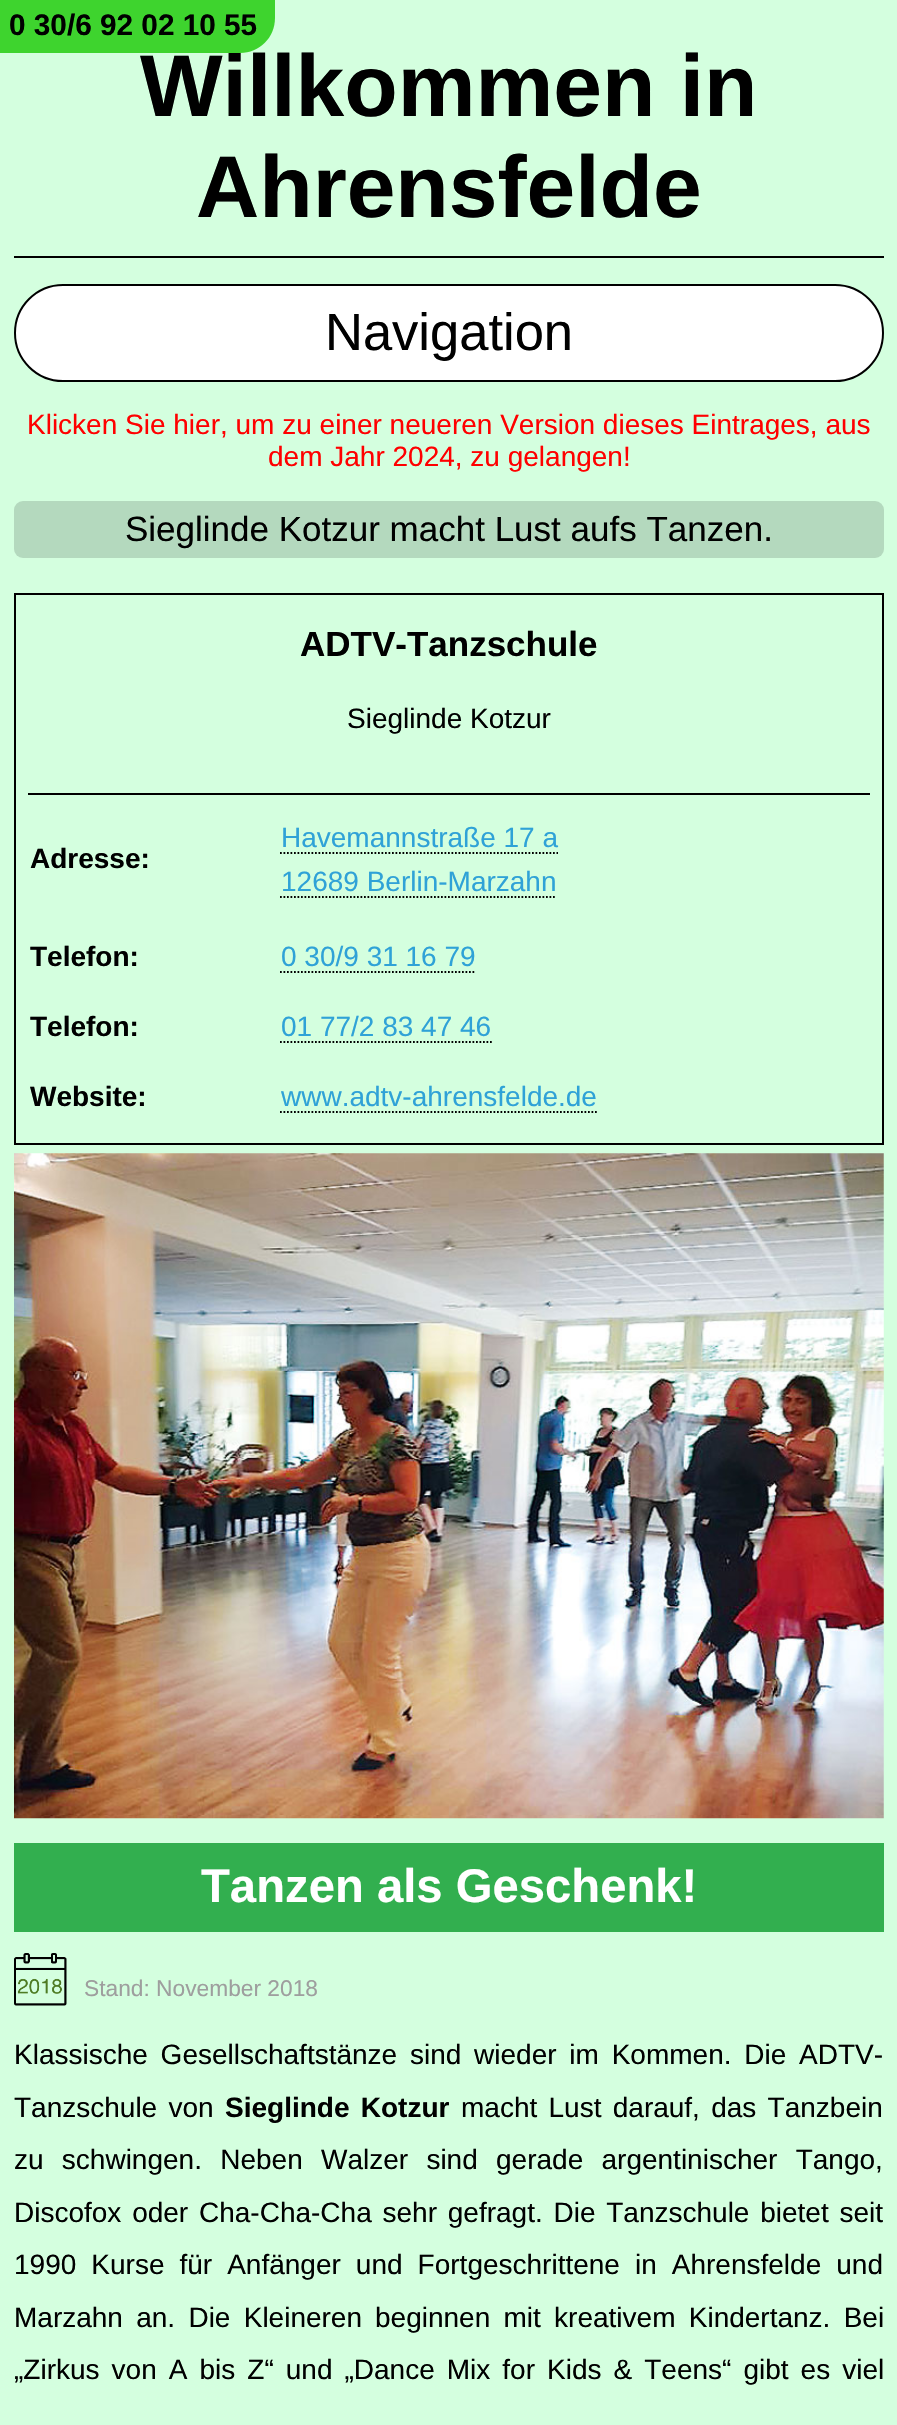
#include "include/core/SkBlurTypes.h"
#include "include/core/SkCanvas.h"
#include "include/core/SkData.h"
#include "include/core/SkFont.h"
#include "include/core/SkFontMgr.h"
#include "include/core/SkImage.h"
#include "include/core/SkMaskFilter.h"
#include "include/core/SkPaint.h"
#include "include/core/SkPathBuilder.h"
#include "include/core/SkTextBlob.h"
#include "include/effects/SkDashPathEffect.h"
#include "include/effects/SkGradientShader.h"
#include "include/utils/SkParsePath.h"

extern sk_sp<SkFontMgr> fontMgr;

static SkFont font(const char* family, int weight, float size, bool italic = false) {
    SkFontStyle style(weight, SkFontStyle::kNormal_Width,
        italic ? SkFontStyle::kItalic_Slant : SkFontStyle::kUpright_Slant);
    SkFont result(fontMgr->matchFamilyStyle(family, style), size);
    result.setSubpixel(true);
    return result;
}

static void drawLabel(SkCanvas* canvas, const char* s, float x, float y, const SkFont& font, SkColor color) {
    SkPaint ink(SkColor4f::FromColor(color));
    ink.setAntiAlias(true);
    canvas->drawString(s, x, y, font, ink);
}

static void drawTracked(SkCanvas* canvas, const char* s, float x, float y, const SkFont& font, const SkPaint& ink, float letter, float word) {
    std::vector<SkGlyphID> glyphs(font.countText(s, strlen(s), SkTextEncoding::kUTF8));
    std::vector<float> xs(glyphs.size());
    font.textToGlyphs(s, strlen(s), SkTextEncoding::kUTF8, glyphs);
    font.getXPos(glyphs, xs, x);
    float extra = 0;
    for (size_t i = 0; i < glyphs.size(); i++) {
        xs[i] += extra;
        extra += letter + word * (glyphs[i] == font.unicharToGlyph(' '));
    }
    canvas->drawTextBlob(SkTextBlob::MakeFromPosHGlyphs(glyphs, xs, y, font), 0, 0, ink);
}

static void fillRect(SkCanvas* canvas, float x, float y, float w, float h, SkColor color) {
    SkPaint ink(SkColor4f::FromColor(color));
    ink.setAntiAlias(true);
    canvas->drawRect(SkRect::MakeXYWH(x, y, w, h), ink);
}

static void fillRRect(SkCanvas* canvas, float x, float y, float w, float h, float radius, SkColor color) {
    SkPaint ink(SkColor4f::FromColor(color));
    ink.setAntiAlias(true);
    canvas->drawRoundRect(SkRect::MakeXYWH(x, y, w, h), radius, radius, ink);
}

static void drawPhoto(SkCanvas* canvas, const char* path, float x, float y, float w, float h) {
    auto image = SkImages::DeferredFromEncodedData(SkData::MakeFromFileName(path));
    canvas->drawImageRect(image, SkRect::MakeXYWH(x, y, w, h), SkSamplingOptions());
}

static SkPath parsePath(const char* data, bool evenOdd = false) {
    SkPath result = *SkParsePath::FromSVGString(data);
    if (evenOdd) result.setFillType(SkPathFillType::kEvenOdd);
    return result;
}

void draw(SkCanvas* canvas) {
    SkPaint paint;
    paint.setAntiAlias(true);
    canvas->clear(0xFFD4FFDF);
    SkFont font1 = font("Liberation Sans", 700, 87.5f);
    drawLabel(canvas, "Willkommen in", 140, 116, font1, 0xFF000000);
    paint.setColor(0xFF3ED42E);
    canvas->drawPath(parsePath("M0 0H275V18C275 37.5 259.5 53 240 53H0Z"), paint);
    SkFont font2 = font("Liberation Sans", 700, 29.75f);
    drawLabel(canvas, "0 30/6 92 02 10 55", 9, 35, font2, 0xFF000000);
    fillRect(canvas, 14, 256, 870, 2, 0xFF000000);
    drawLabel(canvas, "Ahrensfelde", 196, 217, font1, 0xFF000000);
    paint.setColor(0xFFFFFFFF);
    canvas->drawRoundRect(SkRect::MakeXYWH(15, 285, 868, 96), 48, 48, paint);
    paint.setStroke(true);
    paint.setStrokeWidth(2);
    paint.setColor(0xFF000000);
    canvas->drawRoundRect(SkRect::MakeXYWH(15, 285, 868, 96), 48, 48, paint);
    SkFont font3 = font("Liberation Sans", 400, 52.5f);
    drawLabel(canvas, "Navigation", 325, 350, font3, 0xFF000000);
    SkFont font4 = font("Liberation Sans", 400, 28);
    drawLabel(canvas, "Klicken Sie hier, um zu einer neueren Version dieses Eintrages, aus", 27, 434, font4, 0xFFFF0000);
    drawLabel(canvas, "dem Jahr 2024, zu gelangen!", 268, 466, font4, 0xFFFF0000);
    fillRRect(canvas, 14, 501, 870, 57, 9, 0xFFB4D9BE);
    SkFont font5 = font("Liberation Sans", 400, 35);
    drawLabel(canvas, "Sieglinde Kotzur macht Lust aufs Tanzen.", 125, 541, font5, 0xFF000000);
    canvas->drawRect(SkRect::MakeXYWH(15, 594, 868, 550), paint);
    SkFont font6 = font("Liberation Sans", 700, 35);
    drawLabel(canvas, "ADTV-Tanzschule", 300, 656, font6, 0xFF000000);
    drawLabel(canvas, "Sieglinde Kotzur", 347, 728, font4, 0xFF000000);
    fillRect(canvas, 28, 793, 842, 2, 0xFF000000);
    SkFont font7 = font("Liberation Sans", 700, 28);
    drawLabel(canvas, "Adresse:", 30, 868, font7, 0xFF000000);
    drawLabel(canvas, "Havemannstraße 17 a", 281, 847, font4, 0xFF2FA2D7);
    paint.setStrokeWidth(1.8f);
    paint.setPathEffect(SkDashPathEffect::Make({{1.75f, 1.75f}}, 0));
    canvas->drawPath(parsePath("M280 853H558"), paint);
    paint.setPathEffect(nullptr);
    drawLabel(canvas, "12689 Berlin-Marzahn", 281, 891, font4, 0xFF2FA2D7);
    paint.setPathEffect(SkDashPathEffect::Make({{1.75f, 1.75f}}, 0));
    canvas->drawPath(parsePath("M280 897H556.5"), paint);
    paint.setPathEffect(nullptr);
    drawLabel(canvas, "Telefon:", 30, 966, font7, 0xFF000000);
    drawLabel(canvas, "0 30/9 31 16 79", 281, 966, font4, 0xFF2FA2D7);
    paint.setPathEffect(SkDashPathEffect::Make({{1.75f, 1.75f}}, 0));
    canvas->drawPath(parsePath("M280 972H476"), paint);
    paint.setPathEffect(nullptr);
    drawLabel(canvas, "Telefon:", 30, 1036, font7, 0xFF000000);
    drawLabel(canvas, "01 77/2 83 47 46", 281, 1036, font4, 0xFF2FA2D7);
    paint.setPathEffect(SkDashPathEffect::Make({{1.75f, 1.75f}}, 0));
    canvas->drawPath(parsePath("M280 1042H492"), paint);
    paint.setPathEffect(nullptr);
    drawLabel(canvas, "Website:", 30, 1106, font7, 0xFF000000);
    drawLabel(canvas, "www.adtv-ahrensfelde.de", 281, 1106, font4, 0xFF2FA2D7);
    paint.setPathEffect(SkDashPathEffect::Make({{1.75f, 1.75f}}, 0));
    canvas->drawPath(parsePath("M280 1112H597"), paint);
    paint.setPathEffect(nullptr);
    drawPhoto(canvas, "assets/img1.png", 14, 1153, 870, 666);
    fillRect(canvas, 14, 1843, 870, 89, 0xFF32AF4F);
    SkFont font8 = font("Liberation Sans", 700, 47.25f);
    drawLabel(canvas, "Tanzen als Geschenk!", 201, 1902, font8, 0xFFFFFFFF);
    drawPhoto(canvas, "assets/img2.png", 14, 1953, 53, 53);
    SkFont font9 = font("Liberation Sans", 400, 22.75f);
    drawLabel(canvas, "Stand: November 2018", 84, 1996, font9, 0xFF9E9E9E);
    paint.setStroke(false);
    drawTracked(canvas, "Klassische Gesellschaftstänze sind wieder im Kommen. Die ADTV-", 14, 2064, font4, paint, 0, 5);
    drawTracked(canvas, "Tanzschule von", 14, 2117, font4, paint, 0, 3.5f);
    drawTracked(canvas, "Sieglinde Kotzur", 225, 2117, font7, paint, 0, 3.5f);
    drawTracked(canvas, "macht Lust darauf, das Tanzbein", 461, 2117, font4, paint, 0, 3.5f);
    drawTracked(canvas, "zu schwingen. Neben Walzer sind gerade argentinischer Tango,", 14, 2169, font4, paint, 0, 10.5f);
    drawTracked(canvas, "Discofox oder Cha-Cha-Cha sehr gefragt. Die Tanzschule bietet seit", 14, 2222, font4, paint, 0, 3);
    drawTracked(canvas, "1990 Kurse für Anfänger und Fortgeschrittene in Ahrensfelde und", 14, 2274, font4, paint, 0, 7.25f);
    drawTracked(canvas, "Marzahn an. Die Kleineren", 14, 2327, font4, paint, 0, 5.5f);
    drawTracked(canvas, "beginnen mit kreativem Kindertanz. Bei", 375, 2327, font4, paint, 0, 5.5f);
    drawTracked(canvas, "„Zirkus von A bis Z“ und „Dance Mix for Kids & Teens“ gibt es viel", 14, 2379, font4, paint, 0, 4.25f);
}
